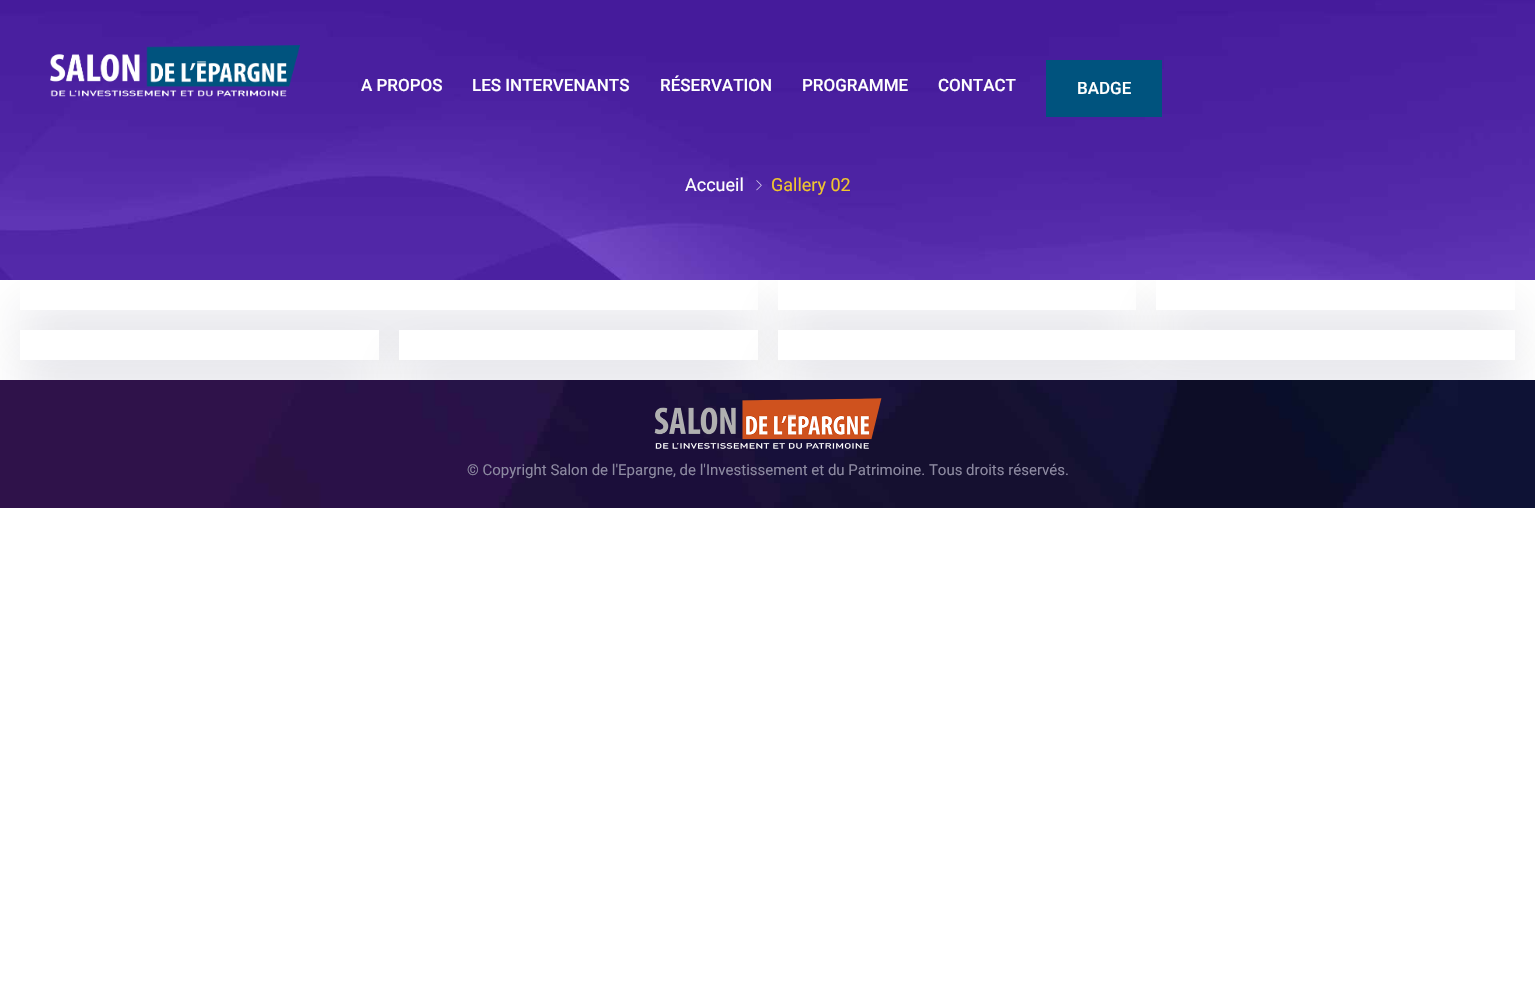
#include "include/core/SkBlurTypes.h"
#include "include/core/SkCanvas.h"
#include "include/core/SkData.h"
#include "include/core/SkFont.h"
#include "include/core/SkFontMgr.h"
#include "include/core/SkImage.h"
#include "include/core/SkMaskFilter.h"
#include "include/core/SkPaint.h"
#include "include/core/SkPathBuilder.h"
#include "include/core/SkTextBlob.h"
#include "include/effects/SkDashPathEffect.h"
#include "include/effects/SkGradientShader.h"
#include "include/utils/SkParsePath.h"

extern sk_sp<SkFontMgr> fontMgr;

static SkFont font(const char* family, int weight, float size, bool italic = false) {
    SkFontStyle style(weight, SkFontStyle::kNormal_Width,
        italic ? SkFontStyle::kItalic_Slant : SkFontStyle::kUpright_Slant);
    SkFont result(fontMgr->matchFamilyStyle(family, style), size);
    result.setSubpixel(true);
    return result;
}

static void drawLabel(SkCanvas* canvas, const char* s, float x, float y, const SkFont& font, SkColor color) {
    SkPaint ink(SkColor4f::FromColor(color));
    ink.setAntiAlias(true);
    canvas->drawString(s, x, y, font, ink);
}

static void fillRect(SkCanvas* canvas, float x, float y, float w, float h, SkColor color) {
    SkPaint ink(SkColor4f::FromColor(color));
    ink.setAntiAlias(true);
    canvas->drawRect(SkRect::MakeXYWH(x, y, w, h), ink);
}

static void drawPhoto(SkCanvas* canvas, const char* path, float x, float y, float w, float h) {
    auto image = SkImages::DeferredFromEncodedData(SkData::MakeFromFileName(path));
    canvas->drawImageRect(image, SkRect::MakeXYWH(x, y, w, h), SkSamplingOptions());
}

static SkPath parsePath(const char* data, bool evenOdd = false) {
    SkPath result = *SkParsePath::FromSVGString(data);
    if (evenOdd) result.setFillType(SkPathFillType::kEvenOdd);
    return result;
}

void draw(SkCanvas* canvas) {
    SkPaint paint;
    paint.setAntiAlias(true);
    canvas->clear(0xFFFFFFFF);
    canvas->save();
    canvas->clipPath(parsePath("M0 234H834V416H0ZM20 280H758V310H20Z", true), true);
    paint.setColor(0x26080D3E);
    paint.setMaskFilter(SkMaskFilter::MakeBlur(kNormal_SkBlurStyle, 25));
    canvas->drawRect(SkRect::MakeXYWH(20, 310, 738, 30), paint);
    paint.setMaskFilter(nullptr);
    canvas->restore();
    paint.setMaskFilter(SkMaskFilter::MakeBlur(kNormal_SkBlurStyle, 25));
    canvas->drawRect(SkRect::MakeXYWH(778, 310, 358, 30), paint);
    paint.setMaskFilter(nullptr);
    fillRect(canvas, 778, 280, 358, 30, 0xFFFFFFFF);
    paint.setMaskFilter(SkMaskFilter::MakeBlur(kNormal_SkBlurStyle, 25));
    canvas->drawRect(SkRect::MakeXYWH(1156, 310, 359, 30), paint);
    paint.setMaskFilter(nullptr);
    drawPhoto(canvas, "assets/img2.png", 0, 0, 1535, 280);
    drawPhoto(canvas, "assets/img1.png", 50, 45, 250, 52);
    SkFont font1 = font("Roboto", 500, 17);
    drawLabel(canvas, "A PROPOS", 361, 91, font1, 0xFFFFFFFF);
    drawLabel(canvas, "LES INTERVENANTS", 472, 91, font1, 0xFFFFFFFF);
    drawLabel(canvas, "RÉSERVATION", 660, 91, font1, 0xFFFFFFFF);
    drawLabel(canvas, "PROGRAMME", 802, 91, font1, 0xFFFFFFFF);
    drawLabel(canvas, "CONTACT", 938, 91, font1, 0xFFFFFFFF);
    fillRect(canvas, 1046, 60, 116, 57, 0xFF00537E);
    drawLabel(canvas, "BADGE", 1077, 94, font1, 0xFFFFFFFF);
    SkFont font2 = font("Roboto", 400, 18);
    drawLabel(canvas, "Accueil", 685, 191, font2, 0xFFFFFFFF);
    drawPhoto(canvas, "assets/img3.png", 756, 180, 6, 11);
    drawLabel(canvas, "Gallery 02", 771, 191, font2, 0xFFF0C52E);
    fillRect(canvas, 1156, 280, 359, 30, 0xFFFFFFFF);
    paint.setMaskFilter(SkMaskFilter::MakeBlur(kNormal_SkBlurStyle, 25));
    canvas->drawRect(SkRect::MakeXYWH(20, 360, 359, 30), paint);
    paint.setMaskFilter(nullptr);
    fillRect(canvas, 20, 330, 359, 30, 0xFFFFFFFF);
    paint.setMaskFilter(SkMaskFilter::MakeBlur(kNormal_SkBlurStyle, 25));
    canvas->drawRect(SkRect::MakeXYWH(399, 360, 359, 30), paint);
    paint.setMaskFilter(nullptr);
    fillRect(canvas, 399, 330, 359, 30, 0xFFFFFFFF);
    paint.setMaskFilter(SkMaskFilter::MakeBlur(kNormal_SkBlurStyle, 25));
    canvas->drawRect(SkRect::MakeXYWH(778, 360, 737, 30), paint);
    paint.setMaskFilter(nullptr);
    fillRect(canvas, 778, 330, 737, 30, 0xFFFFFFFF);
    drawPhoto(canvas, "assets/img4.png", 0, 380, 1535, 128);
    drawPhoto(canvas, "assets/img5.png", 654, 398, 228, 51);
    SkFont font3 = font("Roboto", 400, 15);
    drawLabel(canvas, "© Copyright Salon de l'Epargne, de l'Investissement et du Patrimoine. Tous droits réservés.", 467, 475, font3, 0xFF8D8AA1);
}
